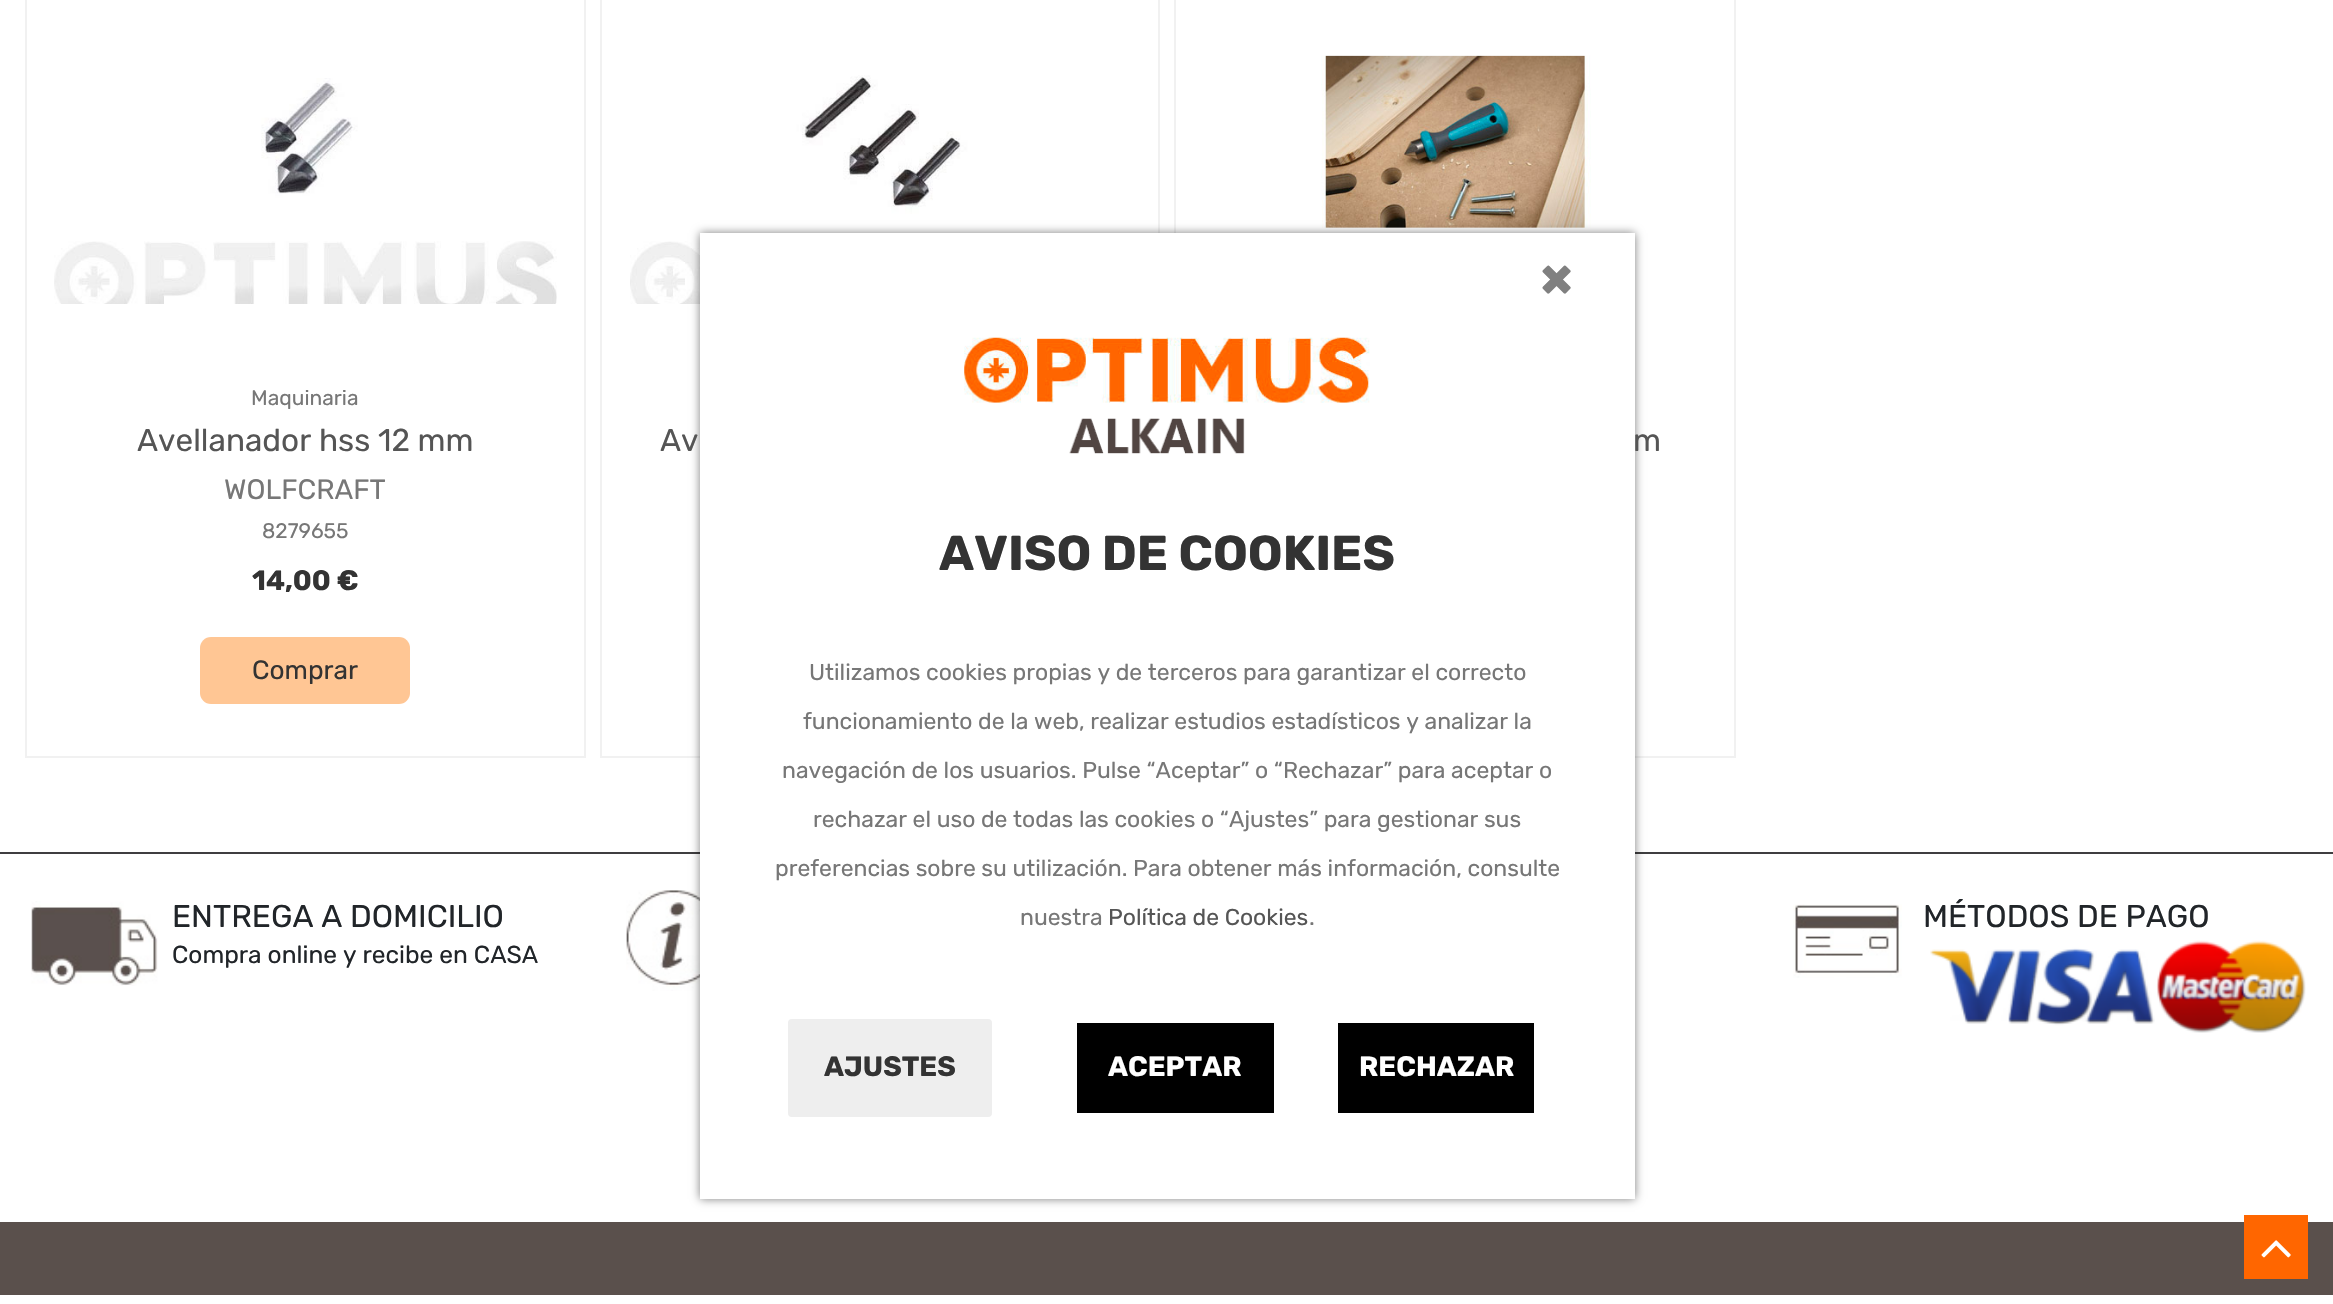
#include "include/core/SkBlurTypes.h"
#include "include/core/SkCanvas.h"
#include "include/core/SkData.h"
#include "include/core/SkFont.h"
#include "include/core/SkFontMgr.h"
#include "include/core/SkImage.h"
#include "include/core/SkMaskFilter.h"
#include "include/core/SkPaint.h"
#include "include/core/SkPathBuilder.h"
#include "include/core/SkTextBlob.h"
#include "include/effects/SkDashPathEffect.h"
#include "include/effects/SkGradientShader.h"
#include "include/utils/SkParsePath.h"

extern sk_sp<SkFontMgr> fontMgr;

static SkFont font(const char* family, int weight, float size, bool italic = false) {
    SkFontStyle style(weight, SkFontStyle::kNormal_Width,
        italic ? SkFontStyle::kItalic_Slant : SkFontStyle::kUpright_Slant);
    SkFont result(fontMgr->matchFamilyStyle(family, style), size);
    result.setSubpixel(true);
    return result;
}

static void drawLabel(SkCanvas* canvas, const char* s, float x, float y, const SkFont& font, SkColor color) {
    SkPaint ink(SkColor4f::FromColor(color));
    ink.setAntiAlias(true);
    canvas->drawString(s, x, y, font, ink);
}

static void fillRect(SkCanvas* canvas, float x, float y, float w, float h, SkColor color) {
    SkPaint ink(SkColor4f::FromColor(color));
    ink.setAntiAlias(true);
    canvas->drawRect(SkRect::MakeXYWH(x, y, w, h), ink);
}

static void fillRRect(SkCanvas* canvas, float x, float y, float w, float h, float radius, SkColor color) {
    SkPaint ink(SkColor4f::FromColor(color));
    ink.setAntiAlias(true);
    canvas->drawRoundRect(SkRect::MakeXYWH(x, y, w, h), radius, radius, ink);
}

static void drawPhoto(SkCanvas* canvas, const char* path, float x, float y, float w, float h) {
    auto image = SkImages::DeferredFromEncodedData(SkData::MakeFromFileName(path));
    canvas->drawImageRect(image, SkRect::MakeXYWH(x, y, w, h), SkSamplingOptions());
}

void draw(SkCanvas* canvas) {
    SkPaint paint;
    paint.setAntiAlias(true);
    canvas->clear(0xFFFFFFFF);
    paint.setStroke(true);
    paint.setStrokeWidth(2);
    paint.setColor(0xFFF1F1F1);
    canvas->drawRect(SkRect::MakeXYWH(601, -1, 558, 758), paint);
    drawPhoto(canvas, "assets/img3.png", 630, 75, 501, 229);
    canvas->drawRect(SkRect::MakeXYWH(1175, -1, 560, 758), paint);
    drawPhoto(canvas, "assets/img4.png", 1321, 55, 270, 173);
    fillRect(canvas, 0, 852, 2333, 2, 0xFF3F3E40);
    drawPhoto(canvas, "assets/img6.png", 626, 890, 74, 101);
    paint.setStroke(false);
    paint.setColor(0x80000000);
    paint.setMaskFilter(SkMaskFilter::MakeBlur(kNormal_SkBlurStyle, 4.5f));
    canvas->drawRect(SkRect::MakeXYWH(700, 233, 935, 966), paint);
    paint.setMaskFilter(nullptr);
    fillRect(canvas, 700, 233, 935, 966, 0xFFFFFFFF);
    SkFont font1 = font("Rubik", 700, 55);
    drawLabel(canvas, "×", 1540, 296, font1, 0xFF808080);
    drawPhoto(canvas, "assets/img1.png", 964, 337, 406, 117);
    SkFont font2 = font("Rubik", 700, 49);
    drawLabel(canvas, "AVISO DE COOKIES", 939, 570, font2, 0xFF333333);
    SkFont font3 = font("Rubik", 400, 22.95f);
    drawLabel(canvas, "Utilizamos cookies propias y de terceros para garantizar el correcto", 809, 680, font3, 0xFF777777);
    drawLabel(canvas, "funcionamiento de la web, realizar estudios estadísticos y analizar la", 803, 729, font3, 0xFF777777);
    drawLabel(canvas, "navegación de los usuarios. Pulse “Aceptar” o “Rechazar” para aceptar o", 782, 778, font3, 0xFF777777);
    drawLabel(canvas, "rechazar el uso de todas las cookies o “Ajustes” para gestionar sus", 813, 827, font3, 0xFF777777);
    drawLabel(canvas, "preferencias sobre su utilización. Para obtener más información, consulte", 775, 876, font3, 0xFF777777);
    drawLabel(canvas, "nuestra", 1020, 925, font3, 0xFF777777);
    drawLabel(canvas, "Política de Cookies", 1108, 925, font3, 0xFF555555);
    drawLabel(canvas, ".", 1309, 925, font3, 0xFF777777);
    paint.setColor(0xFFEEEEEE);
    canvas->drawRoundRect(SkRect::MakeXYWH(790, 1021, 200, 94), 2, 2, paint);
    paint.setStroke(true);
    paint.setStrokeWidth(4);
    canvas->drawRoundRect(SkRect::MakeXYWH(790, 1021, 200, 94), 2, 2, paint);
    SkFont font4 = font("Rubik", 700, 28);
    drawLabel(canvas, "AJUSTES", 824, 1076, font4, 0xFF333333);
    paint.setStroke(false);
    paint.setColor(0xFF000000);
    canvas->drawRoundRect(SkRect::MakeXYWH(1075, 1021, 201, 94), 2, 2, paint);
    paint.setStroke(true);
    paint.setColor(0xFFFFFFFF);
    canvas->drawRoundRect(SkRect::MakeXYWH(1075, 1021, 201, 94), 2, 2, paint);
    drawLabel(canvas, "ACEPTAR", 1108, 1076, font4, 0xFFFFFFFF);
    paint.setStroke(false);
    paint.setColor(0xFF000000);
    canvas->drawRoundRect(SkRect::MakeXYWH(1336, 1021, 200, 94), 2, 2, paint);
    paint.setStroke(true);
    paint.setColor(0xFFFFFFFF);
    canvas->drawRoundRect(SkRect::MakeXYWH(1336, 1021, 200, 94), 2, 2, paint);
    drawLabel(canvas, "RECHAZAR", 1359, 1076, font4, 0xFFFFFFFF);
    paint.setStrokeWidth(2);
    paint.setColor(0xFFF1F1F1);
    canvas->drawRect(SkRect::MakeXYWH(26, -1, 559, 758), paint);
    drawPhoto(canvas, "assets/img2.png", 54, 78, 503, 226);
    SkFont font5 = font("Rubik", 400, 21);
    drawLabel(canvas, "Maquinaria", 251, 405, font5, 0xFF777777);
    SkFont font6 = font("Rubik", 400, 31.5f);
    drawLabel(canvas, "Avellanador hss 12 mm", 137, 451, font6, 0xFF555555);
    SkFont font7 = font("Rubik", 400, 28);
    drawLabel(canvas, "WOLFCRAFT", 224, 499, font7, 0xFF777777);
    drawLabel(canvas, "8279655", 262, 538, font5, 0xFF777777);
    drawLabel(canvas, "14,00 €", 252, 590, font4, 0xFF333333);
    fillRRect(canvas, 200, 637, 210, 67, 11, 0xFFFFC694);
    SkFont font8 = font("Rubik", 400, 26.25f);
    drawLabel(canvas, "Comprar", 252, 679, font8, 0xFF333333);
    drawLabel(canvas, "Av", 660, 451, font6, 0xFF555555);
    drawLabel(canvas, "m", 1633, 451, font6, 0xFF555555);
    drawPhoto(canvas, "assets/img5.png", 31, 901, 127, 85);
    drawLabel(canvas, "ENTREGA A DOMICILIO", 172, 927, font6, 0xFF212529);
    SkFont font9 = font("Rubik", 400, 24.5f);
    drawLabel(canvas, "Compra online y recibe en CASA", 172, 963, font9, 0xFF212529);
    drawPhoto(canvas, "assets/img7.png", 1793, 904, 109, 74);
    drawLabel(canvas, "MÉTODOS DE PAGO", 1923, 927, font6, 0xFF212529);
    drawPhoto(canvas, "assets/img8.png", 1930, 940, 376, 93);
    fillRect(canvas, 0, 1222, 2333, 73, 0xFF5A504C);
    fillRect(canvas, 2244, 1215, 64, 64, 0xFFFF6600);
    drawPhoto(canvas, "assets/img9.png", 2261, 1240, 30, 18);
}
